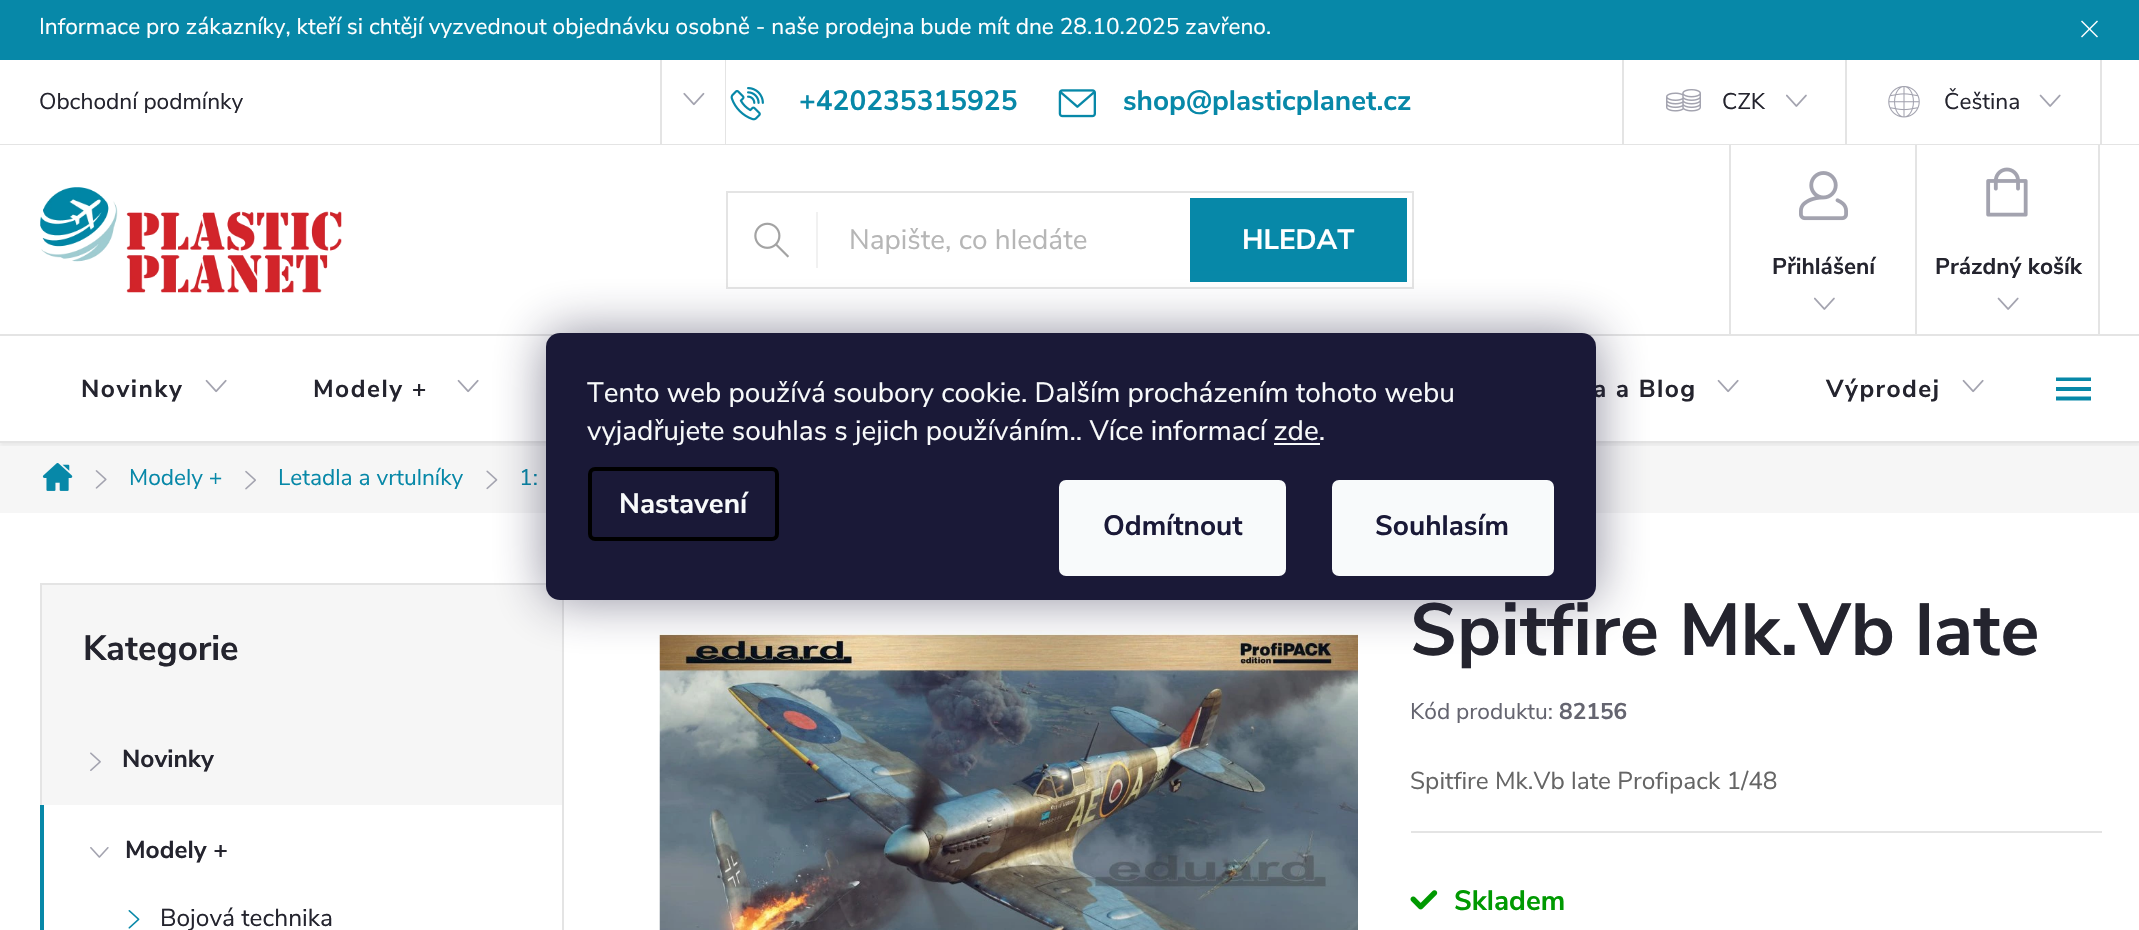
#include "include/core/SkBlurTypes.h"
#include "include/core/SkCanvas.h"
#include "include/core/SkData.h"
#include "include/core/SkFont.h"
#include "include/core/SkFontMgr.h"
#include "include/core/SkImage.h"
#include "include/core/SkMaskFilter.h"
#include "include/core/SkPaint.h"
#include "include/core/SkPathBuilder.h"
#include "include/core/SkTextBlob.h"
#include "include/effects/SkDashPathEffect.h"
#include "include/effects/SkGradientShader.h"
#include "include/utils/SkParsePath.h"

extern sk_sp<SkFontMgr> fontMgr;

static SkFont font(const char* family, int weight, float size, bool italic = false) {
    SkFontStyle style(weight, SkFontStyle::kNormal_Width,
        italic ? SkFontStyle::kItalic_Slant : SkFontStyle::kUpright_Slant);
    SkFont result(fontMgr->matchFamilyStyle(family, style), size);
    result.setSubpixel(true);
    return result;
}

static void drawLabel(SkCanvas* canvas, const char* s, float x, float y, const SkFont& font, SkColor color) {
    SkPaint ink(SkColor4f::FromColor(color));
    ink.setAntiAlias(true);
    canvas->drawString(s, x, y, font, ink);
}

static void drawTracked(SkCanvas* canvas, const char* s, float x, float y, const SkFont& font, const SkPaint& ink, float letter, float word) {
    std::vector<SkGlyphID> glyphs(font.countText(s, strlen(s), SkTextEncoding::kUTF8));
    std::vector<float> xs(glyphs.size());
    font.textToGlyphs(s, strlen(s), SkTextEncoding::kUTF8, glyphs);
    font.getXPos(glyphs, xs, x);
    float extra = 0;
    for (size_t i = 0; i < glyphs.size(); i++) {
        xs[i] += extra;
        extra += letter + word * (glyphs[i] == font.unicharToGlyph(' '));
    }
    canvas->drawTextBlob(SkTextBlob::MakeFromPosHGlyphs(glyphs, xs, y, font), 0, 0, ink);
}

static void fillRect(SkCanvas* canvas, float x, float y, float w, float h, SkColor color) {
    SkPaint ink(SkColor4f::FromColor(color));
    ink.setAntiAlias(true);
    canvas->drawRect(SkRect::MakeXYWH(x, y, w, h), ink);
}

static void fillRRect(SkCanvas* canvas, float x, float y, float w, float h, float radius, SkColor color) {
    SkPaint ink(SkColor4f::FromColor(color));
    ink.setAntiAlias(true);
    canvas->drawRoundRect(SkRect::MakeXYWH(x, y, w, h), radius, radius, ink);
}

static void drawPhoto(SkCanvas* canvas, const char* path, float x, float y, float w, float h) {
    auto image = SkImages::DeferredFromEncodedData(SkData::MakeFromFileName(path));
    canvas->drawImageRect(image, SkRect::MakeXYWH(x, y, w, h), SkSamplingOptions());
}

static SkPath parsePath(const char* data, bool evenOdd = false) {
    SkPath result = *SkParsePath::FromSVGString(data);
    if (evenOdd) result.setFillType(SkPathFillType::kEvenOdd);
    return result;
}

void draw(SkCanvas* canvas) {
    SkPaint paint;
    paint.setAntiAlias(true);
    canvas->clear(0xFFFFFFFF);
    fillRect(canvas, 0, 0, 2139, 60, 0xFF0788A8);
    SkFont font1 = font("Nunito Sans", 400, 22.75f);
    drawLabel(canvas, "Informace pro zákazníky, kteří si chtějí vyzvednout objednávku osobně - naše prodejna bude mít dne 28.10.2025 zavřeno.", 39, 34, font1, 0xFFFFFFFF);
    paint.setColor(0xFFFFFFFF);
    canvas->drawPath(parsePath("M2097 20.5L2098 21.5L2082 37.5L2081 36.5Z"), paint);
    canvas->drawPath(parsePath("M2082 20.5L2098 36.5L2097 37.5L2081 21.5Z"), paint);
    fillRect(canvas, 0, 144, 2139, 1, 0xFFE4E4E4);
    drawLabel(canvas, "Obchodní podmínky", 39, 109, font1, 0xFF24242E);
    fillRect(canvas, 725, 60, 1, 84, 0xFFE4E4E4);
    fillRect(canvas, 660, 60, 2, 84, 0xFFE4E4E4);
    drawPhoto(canvas, "assets/img1.png", 683, 92, 22, 14);
    drawPhoto(canvas, "assets/img2.png", 730, 87, 34, 34);
    SkFont font2 = font("Nunito Sans", 700, 28);
    drawLabel(canvas, "+420235315925", 799, 110, font2, 0xFF0788A8);
    drawPhoto(canvas, "assets/img3.png", 1058, 89, 38, 29);
    drawLabel(canvas, "shop@plasticplanet.cz", 1123, 110, font2, 0xFF0788A8);
    fillRect(canvas, 2100, 60, 2, 84, 0xFFE4E4E4);
    fillRect(canvas, 1622, 60, 2, 84, 0xFFE4E4E4);
    drawPhoto(canvas, "assets/img4.png", 1666, 89, 35, 23);
    drawLabel(canvas, "CZK", 1722, 109, font1, 0xFF24242E);
    drawPhoto(canvas, "assets/img5.png", 1786, 94, 21, 13);
    fillRect(canvas, 1845, 60, 2, 84, 0xFFE4E4E4);
    drawPhoto(canvas, "assets/img6.png", 1888, 86, 32, 32);
    drawLabel(canvas, "Čeština", 1944, 109, font1, 0xFF24242E);
    drawPhoto(canvas, "assets/img7.png", 2039, 94, 22, 13);
    drawPhoto(canvas, "assets/img8.png", 40, 187, 302, 106);
    paint.setStroke(true);
    paint.setStrokeWidth(2);
    paint.setColor(0xFFE4E4E4);
    canvas->drawRect(SkRect::MakeXYWH(727, 192, 686, 96), paint);
    fillRect(canvas, 816, 212, 2, 56, 0xFFF1F1F1);
    drawPhoto(canvas, "assets/img9.png", 754, 222, 35, 36);
    SkFont font3 = font("Nunito Sans", 400, 28);
    drawLabel(canvas, "Napište, co hledáte", 849, 249, font3, 0xFFB6B6B6);
    fillRect(canvas, 1190, 198, 217, 84, 0xFF0788A8);
    drawLabel(canvas, "HLEDAT", 1242, 249, font2, 0xFFFFFFFF);
    fillRect(canvas, 1729, 145, 2, 189, 0xFFE4E4E4);
    drawPhoto(canvas, "assets/img10.png", 1799, 171, 49, 50);
    SkFont font4 = font("Nunito Sans", 700, 22.75f);
    drawLabel(canvas, "Přihlášení", 1772, 274, font4, 0xFF24242E);
    drawPhoto(canvas, "assets/img5.png", 1814, 297, 21, 13);
    fillRect(canvas, 2098, 145, 2, 189, 0xFFE4E4E4);
    fillRect(canvas, 1915, 145, 2, 189, 0xFFE4E4E4);
    drawPhoto(canvas, "assets/img11.png", 1986, 167, 42, 50);
    drawLabel(canvas, "Prázdný košík", 1935, 274, font4, 0xFF24242E);
    drawPhoto(canvas, "assets/img7.png", 1997, 297, 22, 13);
    fillRect(canvas, 0, 443, 2139, 70, 0xFFF6F6F6);
    canvas->save();
    canvas->clipRect(SkRect::MakeXYWH(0, 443, 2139, 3));
    paint.setStroke(false);
    paint.setColor(0x0D000000);
    paint.setMaskFilter(SkMaskFilter::MakeBlur(kNormal_SkBlurStyle, 2));
    canvas->drawRect(SkRect::MakeXYWH(0, 338, 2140, 108), paint);
    paint.setMaskFilter(nullptr);
    canvas->restore();
    SkFont font5 = font("Nunito Sans", 700, 24.5f);
    paint.setColor(0xFF24242E);
    drawTracked(canvas, "Novinky", 81, 397, font5, paint, 1.5f, 0);
    drawPhoto(canvas, "assets/img12.png", 205, 379, 22, 14);
    drawTracked(canvas, "Modely +", 313, 397, font5, paint, 1.5f, 0);
    drawPhoto(canvas, "assets/img12.png", 457, 379, 22, 14);
    drawTracked(canvas, "a a Blog", 1593, 397, font5, paint, 1.5f, 0);
    drawPhoto(canvas, "assets/img12.png", 1717, 379, 22, 14);
    drawTracked(canvas, "Výprodej", 1826, 397, font5, paint, 1.5f, 0);
    drawPhoto(canvas, "assets/img12.png", 1962, 379, 22, 14);
    paint.setColor(0xFF0788A8);
    canvas->drawPath(parsePath("M2056 400.5H2091V396.5H2056ZM2056 391H2091V387H2056ZM2056 377.5V381H2091V377.5Z"), paint);
    fillRect(canvas, 0, 334, 2139, 2, 0xFFE4E4E4);
    fillRect(canvas, 0, 441, 2139, 2, 0xFFE4E4E4);
    drawPhoto(canvas, "assets/img13.png", 42, 463, 31, 28);
    drawPhoto(canvas, "assets/img14.png", 95, 470, 12, 19);
    drawLabel(canvas, "Modely +", 129, 485, font1, 0xFF0788A8);
    drawPhoto(canvas, "assets/img15.png", 245, 470, 11, 20);
    drawLabel(canvas, "Letadla a vrtulníky", 278, 485, font1, 0xFF0788A8);
    drawPhoto(canvas, "assets/img16.png", 486, 470, 12, 20);
    drawLabel(canvas, "1:", 519, 485, font1, 0xFF0788A8);
    fillRect(canvas, 42, 585, 520, 220, 0xFFF6F6F6);
    paint.setStroke(true);
    paint.setColor(0xFFE4E4E4);
    canvas->drawRect(SkRect::MakeXYWH(41, 584, 522, 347), paint);
    SkFont font6 = font("Nunito Sans", 700, 35);
    drawLabel(canvas, "Kategorie", 83, 660, font6, 0xFF24242E);
    drawPhoto(canvas, "assets/img17.png", 90, 752, 11, 19);
    drawLabel(canvas, "Novinky", 122, 767, font5, 0xFF24242E);
    fillRect(canvas, 40, 805, 4, 125, 0xFF0788A8);
    drawPhoto(canvas, "assets/img18.png", 90, 847, 19, 11);
    drawLabel(canvas, "Modely +", 125, 858, font5, 0xFF24242E);
    drawPhoto(canvas, "assets/img19.png", 128, 910, 12, 19);
    SkFont font7 = font("Nunito Sans", 400, 24.5f);
    drawLabel(canvas, "Bojová technika", 160, 926, font7, 0xFF24242E);
    drawPhoto(canvas, "assets/img20.png", 659, 630, 699, 300);
    SkFont font8 = font("Nunito Sans", 700, 73.5f);
    drawLabel(canvas, "Spitfire Mk.Vb late", 1410, 655, font8, 0xFF24242E);
    drawLabel(canvas, "Kód produktu:", 1410, 719, font1, 0xFF656570);
    drawLabel(canvas, "82156", 1559, 719, font4, 0xFF656570);
    fillRect(canvas, 1411, 831, 691, 2, 0xFFE4E4E4);
    drawLabel(canvas, "Spitfire Mk.Vb late Profipack 1/48", 1410, 789, font7, 0xFF656565);
    drawPhoto(canvas, "assets/img21.png", 1410, 890, 28, 20);
    drawLabel(canvas, "Skladem", 1454, 910, font2, 0xFF009901);
    canvas->save();
    canvas->clipPath(parsePath("M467 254H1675V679H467ZM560 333H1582C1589.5 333 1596 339.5 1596 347V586C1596 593.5 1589.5 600 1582 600H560C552.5 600 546 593.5 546 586V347C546 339.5 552.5 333 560 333Z", true), true);
    paint.setStroke(false);
    paint.setColor(0x801B1939);
    paint.setMaskFilter(SkMaskFilter::MakeBlur(kNormal_SkBlurStyle, 26));
    canvas->drawRoundRect(SkRect::MakeXYWH(546, 333, 1050, 267), 14, 14, paint);
    paint.setMaskFilter(nullptr);
    canvas->restore();
    fillRRect(canvas, 546, 333, 1050, 267, 14, 0xFF1A1937);
    drawLabel(canvas, "Tento web používá soubory cookie. Dalším procházením tohoto webu", 587, 402, font3, 0xFFF8FAFB);
    drawLabel(canvas, "vyjadřujete souhlas s jejich používáním.. Více informací zde.", 587, 440, font3, 0xFFF8FAFB);
    fillRect(canvas, 1274, 443, 46, 2, 0xFFF8FAFB);
    paint.setStroke(true);
    paint.setStrokeWidth(4);
    paint.setColor(0xFF000000);
    canvas->drawRoundRect(SkRect::MakeXYWH(590, 469, 187, 70), 5, 5, paint);
    drawLabel(canvas, "Nastavení", 619, 513, font2, 0xFFF8FAFB);
    fillRRect(canvas, 1059, 480, 227, 96, 7, 0xFFF8FAFB);
    drawLabel(canvas, "Odmítnout", 1103, 535, font2, 0xFF1A1937);
    fillRRect(canvas, 1332, 480, 222, 96, 7, 0xFFF8FAFB);
    drawLabel(canvas, "Souhlasím", 1375, 535, font2, 0xFF1A1937);
}
